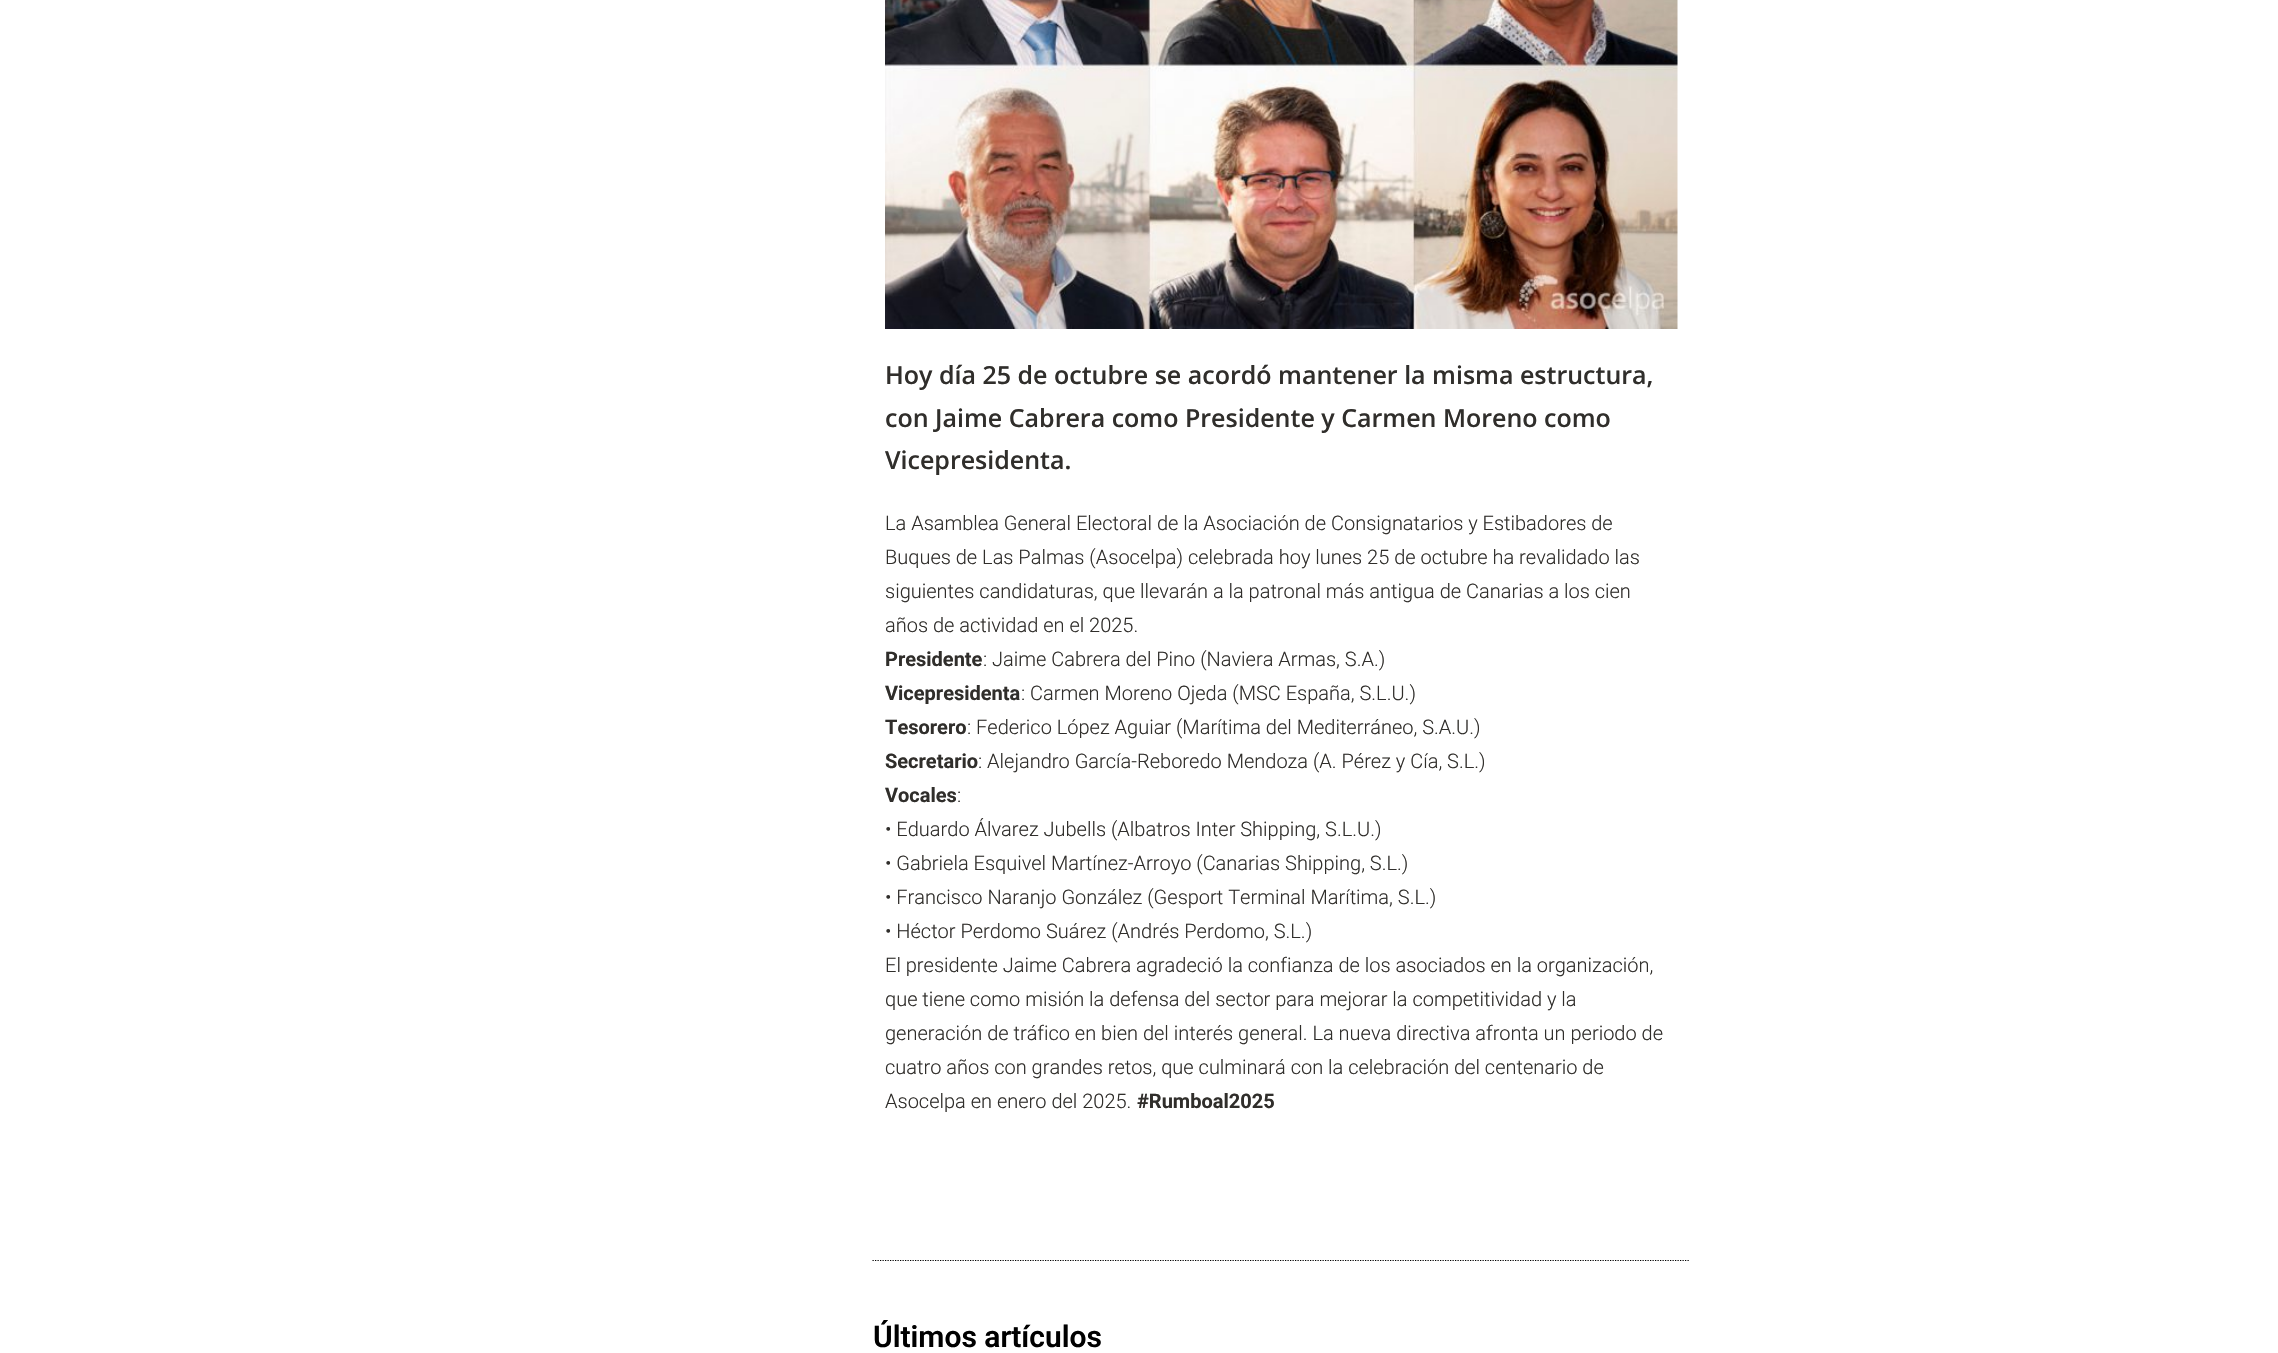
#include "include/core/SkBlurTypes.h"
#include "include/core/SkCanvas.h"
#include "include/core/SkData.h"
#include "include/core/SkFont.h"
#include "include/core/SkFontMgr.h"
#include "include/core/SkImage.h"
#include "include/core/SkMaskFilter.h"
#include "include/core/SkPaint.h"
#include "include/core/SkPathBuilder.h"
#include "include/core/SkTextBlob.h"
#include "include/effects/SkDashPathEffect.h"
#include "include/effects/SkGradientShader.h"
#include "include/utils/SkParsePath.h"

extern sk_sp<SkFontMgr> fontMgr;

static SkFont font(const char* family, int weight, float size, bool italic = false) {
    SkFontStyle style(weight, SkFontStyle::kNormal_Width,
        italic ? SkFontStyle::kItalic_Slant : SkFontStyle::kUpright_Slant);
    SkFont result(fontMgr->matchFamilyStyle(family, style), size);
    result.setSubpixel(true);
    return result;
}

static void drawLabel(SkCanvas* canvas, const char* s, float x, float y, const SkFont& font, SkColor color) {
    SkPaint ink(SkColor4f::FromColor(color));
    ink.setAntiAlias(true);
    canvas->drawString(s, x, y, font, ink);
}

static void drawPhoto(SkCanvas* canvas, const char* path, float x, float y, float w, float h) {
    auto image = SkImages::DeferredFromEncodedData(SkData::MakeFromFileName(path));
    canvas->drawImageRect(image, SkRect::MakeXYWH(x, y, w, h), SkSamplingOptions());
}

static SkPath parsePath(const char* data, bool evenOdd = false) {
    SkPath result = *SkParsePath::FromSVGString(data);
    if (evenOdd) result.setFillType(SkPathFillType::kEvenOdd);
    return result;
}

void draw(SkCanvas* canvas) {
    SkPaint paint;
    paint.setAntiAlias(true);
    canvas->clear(0xFFFFFFFF);
    drawPhoto(canvas, "assets/img1.png", 885, 0, 793, 329);
    SkFont font1 = font("Open Sans", 600, 25);
    drawLabel(canvas, "Hoy día 25 de octubre se acordó mantener la misma estructura,", 885, 384, font1, 0xFF302E2B);
    drawLabel(canvas, "con Jaime Cabrera como Presidente y Carmen Moreno como", 885, 427, font1, 0xFF302E2B);
    drawLabel(canvas, "Vicepresidenta.", 885, 469, font1, 0xFF302E2B);
    SkFont font2 = font("Roboto", 300, 20);
    drawLabel(canvas, "La Asamblea General Electoral de la Asociación de Consignatarios y Estibadores de", 885, 530, font2, 0xFF302E2B);
    drawLabel(canvas, "Buques de Las Palmas (Asocelpa) celebrada hoy lunes 25 de octubre ha revalidado las", 885, 564, font2, 0xFF302E2B);
    drawLabel(canvas, "siguientes candidaturas, que llevarán a la patronal más antigua de Canarias a los cien", 885, 598, font2, 0xFF302E2B);
    drawLabel(canvas, "años de actividad en el 2025.", 885, 632, font2, 0xFF302E2B);
    SkFont font3 = font("Roboto", 700, 20);
    drawLabel(canvas, "Presidente", 885, 666, font3, 0xFF302E2B);
    drawLabel(canvas, ": Jaime Cabrera del Pino (Naviera Armas, S.A.)", 983, 666, font2, 0xFF302E2B);
    drawLabel(canvas, "Vicepresidenta", 885, 700, font3, 0xFF302E2B);
    drawLabel(canvas, ": Carmen Moreno Ojeda (MSC España, S.L.U.)", 1021, 700, font2, 0xFF302E2B);
    drawLabel(canvas, "Tesorero", 885, 734, font3, 0xFF302E2B);
    drawLabel(canvas, ": Federico López Aguiar (Marítima del Mediterráneo, S.A.U.)", 967, 734, font2, 0xFF302E2B);
    drawLabel(canvas, "Secretario", 885, 768, font3, 0xFF302E2B);
    drawLabel(canvas, ": Alejandro García-Reboredo Mendoza (A. Pérez y Cía, S.L.)", 978, 768, font2, 0xFF302E2B);
    drawLabel(canvas, "Vocales", 885, 802, font3, 0xFF302E2B);
    drawLabel(canvas, ":", 957, 802, font2, 0xFF302E2B);
    drawLabel(canvas, "• Eduardo Álvarez Jubells (Albatros Inter Shipping, S.L.U.)", 885, 836, font2, 0xFF302E2B);
    drawLabel(canvas, "• Gabriela Esquivel Martínez-Arroyo (Canarias Shipping, S.L.)", 885, 870, font2, 0xFF302E2B);
    drawLabel(canvas, "• Francisco Naranjo González (Gesport Terminal Marítima, S.L.)", 885, 904, font2, 0xFF302E2B);
    drawLabel(canvas, "• Héctor Perdomo Suárez (Andrés Perdomo, S.L.)", 885, 938, font2, 0xFF302E2B);
    drawLabel(canvas, "El presidente Jaime Cabrera agradeció la confianza de los asociados en la organización,", 885, 972, font2, 0xFF302E2B);
    drawLabel(canvas, "que tiene como misión la defensa del sector para mejorar la competitividad y la", 885, 1006, font2, 0xFF302E2B);
    drawLabel(canvas, "generación de tráfico en bien del interés general. La nueva directiva afronta un periodo de", 885, 1040, font2, 0xFF302E2B);
    drawLabel(canvas, "cuatro años con grandes retos, que culminará con la celebración del centenario de", 885, 1074, font2, 0xFF302E2B);
    drawLabel(canvas, "Asocelpa en enero del 2025.", 885, 1108, font2, 0xFF302E2B);
    drawLabel(canvas, "#Rumboal2025", 1137, 1108, font3, 0xFF302E2B);
    paint.setStroke(true);
    paint.setStrokeWidth(1.2f);
    paint.setColor(0xFF000000);
    paint.setPathEffect(SkDashPathEffect::Make({{1.25f, 1.25f}}, 0));
    canvas->drawPath(parsePath("M872.5 1260.5H1690"), paint);
    paint.setPathEffect(nullptr);
    SkFont font4 = font("Roboto", 600, 30);
    drawLabel(canvas, "Últimos artículos", 873, 1347, font4, 0xFF000000);
}
